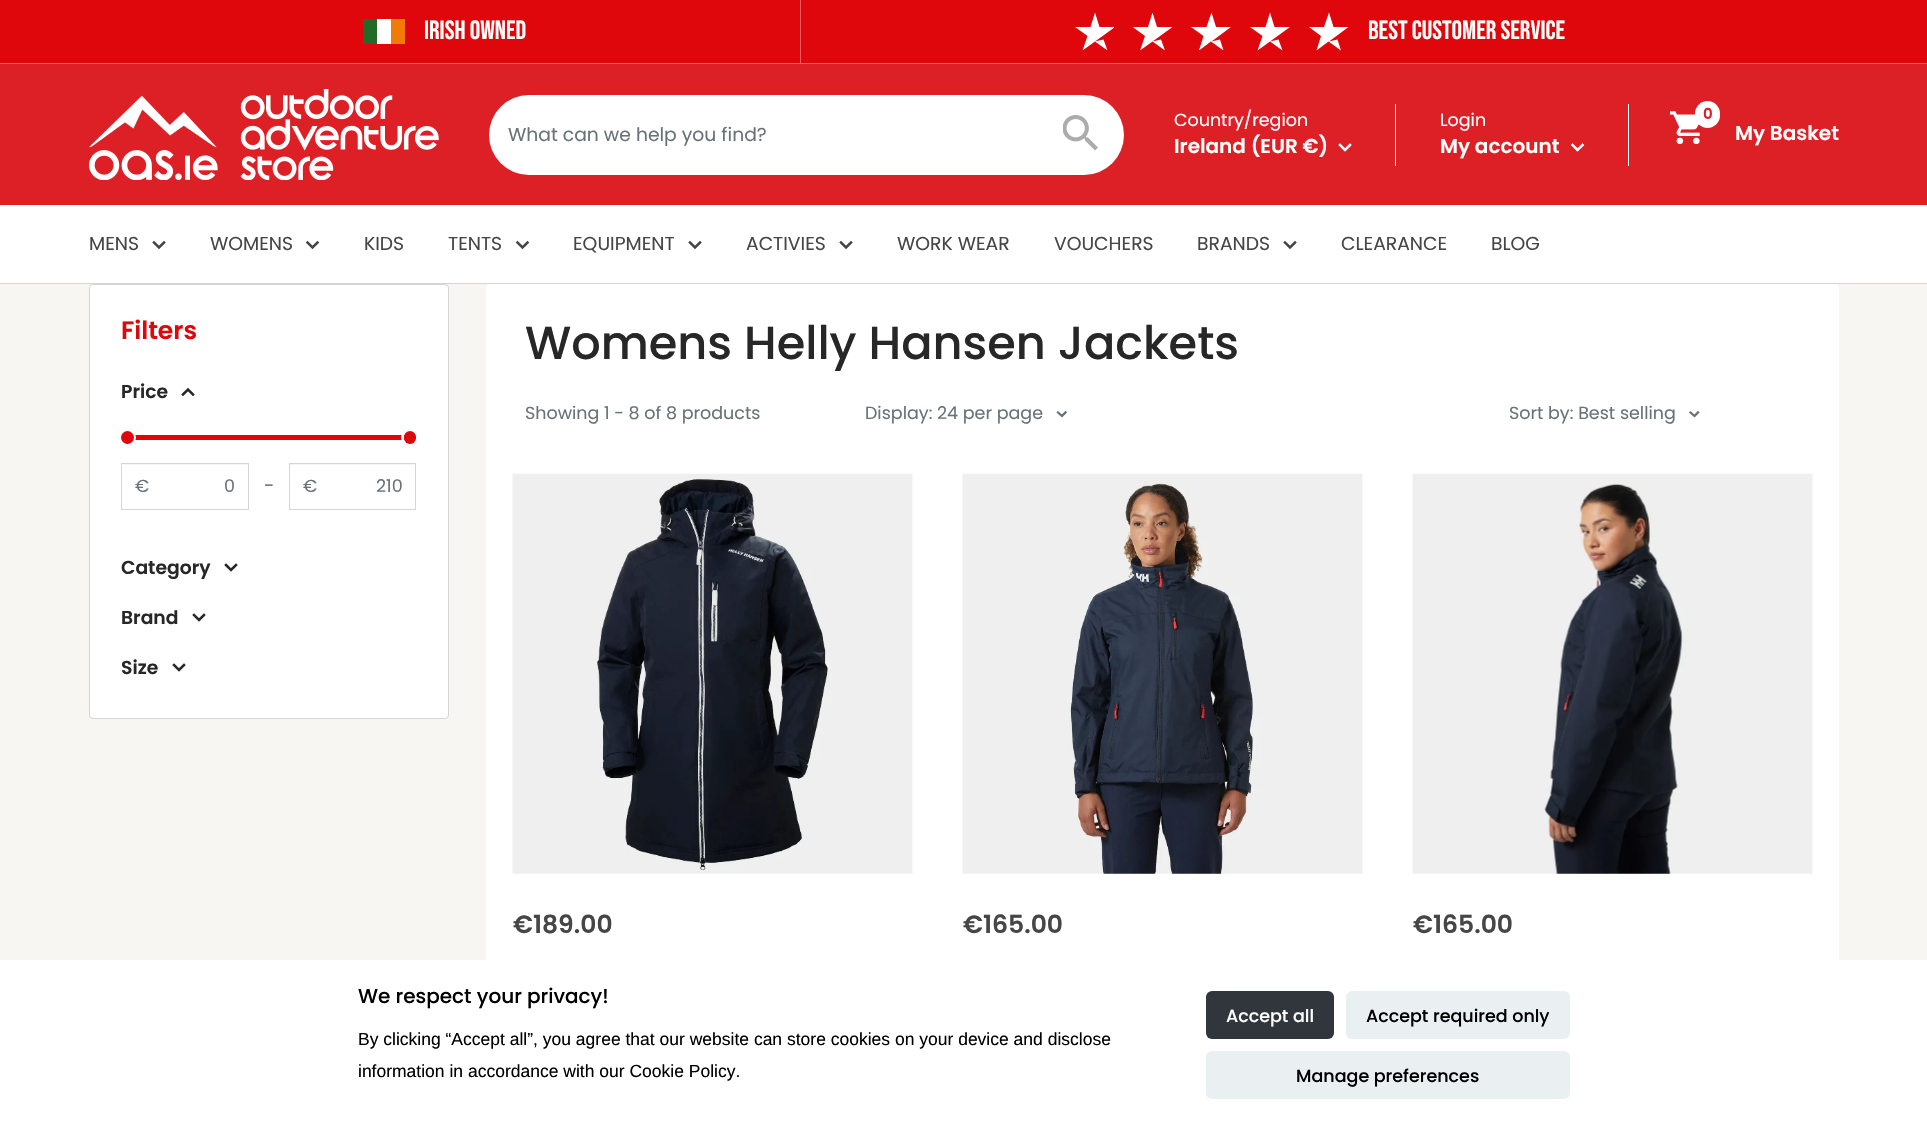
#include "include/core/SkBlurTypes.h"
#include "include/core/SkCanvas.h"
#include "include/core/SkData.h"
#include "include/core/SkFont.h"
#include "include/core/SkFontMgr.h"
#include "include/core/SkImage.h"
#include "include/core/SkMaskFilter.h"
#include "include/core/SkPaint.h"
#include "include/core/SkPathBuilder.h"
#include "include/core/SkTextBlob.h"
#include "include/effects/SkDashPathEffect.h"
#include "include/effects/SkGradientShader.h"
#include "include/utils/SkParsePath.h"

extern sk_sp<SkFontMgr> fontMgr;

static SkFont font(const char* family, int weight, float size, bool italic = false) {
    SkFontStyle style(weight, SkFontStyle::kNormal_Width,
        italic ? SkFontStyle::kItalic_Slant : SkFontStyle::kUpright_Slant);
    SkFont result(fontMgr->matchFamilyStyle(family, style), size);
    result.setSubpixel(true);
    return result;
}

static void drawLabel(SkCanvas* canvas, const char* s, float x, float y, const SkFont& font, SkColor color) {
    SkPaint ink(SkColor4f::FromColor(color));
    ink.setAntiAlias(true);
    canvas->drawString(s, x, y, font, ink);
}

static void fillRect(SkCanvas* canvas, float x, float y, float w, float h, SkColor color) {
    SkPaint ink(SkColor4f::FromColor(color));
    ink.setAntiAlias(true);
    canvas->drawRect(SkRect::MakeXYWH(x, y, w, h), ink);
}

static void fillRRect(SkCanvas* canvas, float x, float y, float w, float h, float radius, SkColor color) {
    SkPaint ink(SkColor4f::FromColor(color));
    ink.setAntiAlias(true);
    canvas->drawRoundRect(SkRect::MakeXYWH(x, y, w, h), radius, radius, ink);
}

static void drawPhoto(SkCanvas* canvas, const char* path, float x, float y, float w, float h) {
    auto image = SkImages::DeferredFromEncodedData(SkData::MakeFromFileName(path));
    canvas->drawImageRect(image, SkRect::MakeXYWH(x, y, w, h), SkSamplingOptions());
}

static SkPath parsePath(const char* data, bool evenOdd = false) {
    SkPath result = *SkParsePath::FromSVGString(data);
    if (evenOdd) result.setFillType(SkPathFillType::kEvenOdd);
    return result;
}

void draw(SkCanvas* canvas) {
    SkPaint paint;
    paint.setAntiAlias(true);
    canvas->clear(0xFFF8F6F2);
    fillRect(canvas, 0, 0, 1927, 63, 0xFFDF070B);
    fillRect(canvas, 0, 63, 1927, 1, 0xFFF85C5F);
    fillRect(canvas, 363, 19, 14, 25, 0xFF226B26);
    fillRect(canvas, 377, 19, 14, 25, 0xFFFFFFFF);
    fillRect(canvas, 391, 19, 14, 25, 0xFFF27A06);
    SkFont font1 = font("Bebas Neue", 400, 26.25f);
    drawLabel(canvas, "IRISH OWNED", 424, 39, font1, 0xFFFFFFFF);
    fillRect(canvas, 800, 0, 1, 63, 0xFFF85C5F);
    canvas->save();
    canvas->clipRect(SkRect::MakeXYWH(1075, 13, 39, 37));
    paint.setColor(0xFFFFFFFF);
    canvas->drawPath(parsePath("M1095 12.5L1090.5 27H1075L1087.5 36L1082.5 50.5L1095 41.5L1107.5 50.5L1103.5 39.5L1095 41.5L1115 27H1099.5Z"), paint);
    canvas->restore();
    canvas->save();
    canvas->clipRect(SkRect::MakeXYWH(1133, 13, 40, 37));
    canvas->drawPath(parsePath("M1152.5 12.5L1148 27H1132.5L1145 36L1140 50.5L1152.5 41.5L1165 50.5L1161 39.5L1152.5 41.5L1172.5 27H1157Z"), paint);
    canvas->restore();
    canvas->save();
    canvas->clipRect(SkRect::MakeXYWH(1191, 13, 40, 37));
    canvas->drawPath(parsePath("M1211.5 12.5L1206.5 27H1191L1203.5 36L1199 50.5L1211 41.5L1223.5 50.5L1220 39.5L1211.5 41.5L1231 27H1216Z"), paint);
    canvas->restore();
    canvas->drawPath(parsePath("M1270 12.5L1265.5 27H1250L1262.5 36L1257.5 50.5L1270 41.5L1282.5 50.5L1278.5 39.5L1270 41.5L1290 27H1274.5Z"), paint);
    canvas->drawPath(parsePath("M1329 12.5L1324 27H1309L1321 36L1316.5 50.5L1328.5 41.5L1341 50.5L1337.5 39.5L1329 41.5L1348.5 27H1333.5Z"), paint);
    drawLabel(canvas, "BEST CUSTOMER SERVICE", 1368, 39, font1, 0xFFFFFFFF);
    fillRect(canvas, 0, 64, 1927, 141, 0xFFDD1F26);
    drawPhoto(canvas, "assets/img1.png", 89, 89, 350, 91);
    fillRRect(canvas, 489, 95, 635, 80, 40, 0xFFFFFFFF);
    SkFont font2 = font("Poppins", 400, 18.75f);
    drawLabel(canvas, "What can we help you find?", 508, 141, font2, 0xFF677279);
    drawPhoto(canvas, "assets/img2.png", 1063, 115, 35, 36);
    SkFont font3 = font("Poppins", 400, 17.5f);
    drawLabel(canvas, "Country/region", 1174, 126, font3, 0xFFFFFFFF);
    SkFont font4 = font("Poppins", 600, 20);
    drawLabel(canvas, "Ireland (EUR €)", 1174, 153, font4, 0xFFFFFFFF);
    paint.setStroke(true);
    paint.setStrokeWidth(2.5f);
    paint.setStrokeCap(SkPaint::kSquare_Cap);
    canvas->drawPath(parsePath("M1350 145L1345 150L1340 145"), paint);
    fillRect(canvas, 1395, 104, 1, 62, 0xFFFFFFFF);
    drawLabel(canvas, "Login", 1440, 126, font3, 0xFFFFFFFF);
    fillRect(canvas, 1628, 104, 1, 62, 0xFFFFFFFF);
    drawLabel(canvas, "My account", 1440, 153, font4, 0xFFFFFFFF);
    canvas->drawPath(parsePath("M1582.5 145L1577.5 150L1572.5 145"), paint);
    drawPhoto(canvas, "assets/img3.png", 1670, 111, 30, 33);
    fillRRect(canvas, 1695, 101, 25, 27, 12.5f, 0xFFFFFFFF);
    SkFont font5 = font("Poppins", 600, 15);
    drawLabel(canvas, "0", 1703, 119, font5, 0xFFDD1F26);
    drawLabel(canvas, "My Basket", 1735, 140, font4, 0xFFFFFFFF);
    fillRect(canvas, 0, 205, 1927, 78, 0xFFFFFFFF);
    fillRect(canvas, 0, 283, 1927, 1, 0xFFD5D5D5);
    drawLabel(canvas, "MENS", 89, 250, font2, 0xFF464646);
    paint.setColor(0xFF464545);
    canvas->drawPath(parsePath("M164 242.5L159 247.5L154 242.5"), paint);
    drawLabel(canvas, "WOMENS", 210, 250, font2, 0xFF464646);
    canvas->drawPath(parsePath("M317.5 242.5L312.5 247.5L307.5 242.5"), paint);
    drawLabel(canvas, "KIDS", 364, 250, font2, 0xFF464646);
    drawLabel(canvas, "TENTS", 448, 250, font2, 0xFF464646);
    canvas->drawPath(parsePath("M527.5 242.5L522.5 247.5L517.5 242.5"), paint);
    drawLabel(canvas, "EQUIPMENT", 573, 250, font2, 0xFF464646);
    canvas->drawPath(parsePath("M700 242.5L695 247.5L690 242.5"), paint);
    drawLabel(canvas, "ACTIVIES", 746, 250, font2, 0xFF464646);
    canvas->drawPath(parsePath("M851 242.5L846 247.5L841 242.5"), paint);
    drawLabel(canvas, "WORK WEAR", 897, 250, font2, 0xFF464646);
    drawLabel(canvas, "VOUCHERS", 1054, 250, font2, 0xFF464646);
    drawLabel(canvas, "BRANDS", 1197, 250, font2, 0xFF464646);
    canvas->drawPath(parsePath("M1295 242.5L1290 247.5L1285 242.5"), paint);
    drawLabel(canvas, "CLEARANCE", 1341, 250, font2, 0xFF464646);
    drawLabel(canvas, "BLOG", 1491, 250, font2, 0xFF464646);
    paint.setStroke(false);
    paint.setColor(0xFFFFFFFF);
    canvas->drawRoundRect(SkRect::MakeXYWH(89.5f, 284.5f, 359, 434), 3.5f, 3.5f, paint);
    paint.setStroke(true);
    paint.setStrokeWidth(1);
    paint.setStrokeCap(SkPaint::kButt_Cap);
    paint.setColor(0xFFD5D5D5);
    canvas->drawRoundRect(SkRect::MakeXYWH(89.5f, 284.5f, 359, 434), 3.5f, 3.5f, paint);
    SkFont font6 = font("Poppins", 600, 25);
    drawLabel(canvas, "Filters", 121, 339, font6, 0xFFDF070B);
    SkFont font7 = font("Poppins", 600, 18.75f);
    drawLabel(canvas, "Price", 121, 398, font7, 0xFF272727);
    paint.setStrokeWidth(2.5f);
    paint.setStrokeCap(SkPaint::kSquare_Cap);
    paint.setColor(0xFF272727);
    canvas->drawPath(parsePath("M183 394.5L188 389.5L193 394.5"), paint);
    fillRRect(canvas, 121, 435, 295, 5, 2.5f, 0xFFDF070B);
    paint.setStrokeWidth(3);
    paint.setStrokeCap(SkPaint::kButt_Cap);
    paint.setColor(0xFFFFFFFF);
    canvas->drawCircle(127.5f, 437.5f, 7, paint);
    paint.setStroke(false);
    paint.setColor(0xFFDF070B);
    canvas->drawCircle(127.5f, 437.5f, 6.5f, paint);
    paint.setStroke(true);
    paint.setColor(0xFFFFFFFF);
    canvas->drawRoundRect(SkRect::MakeXYWH(402.5f, 430.5f, 15, 14), 7, 7, paint);
    fillRRect(canvas, 404, 431, 12, 13, 6, 0xFFDF070B);
    fillRect(canvas, 123, 464, 125, 1, 0xFFF5F5F5);
    paint.setStrokeWidth(1);
    paint.setColor(0xFFD5D5D5);
    canvas->drawRect(SkRect::MakeXYWH(121.5f, 463.5f, 127, 46), paint);
    drawLabel(canvas, "€", 135, 492, font3, 0xFF677279);
    drawLabel(canvas, "0", 224, 492, font3, 0xFF677279);
    drawLabel(canvas, "-", 264, 492, font2, 0xFF677279);
    fillRect(canvas, 290, 464, 125, 1, 0xFFF5F5F5);
    canvas->drawRect(SkRect::MakeXYWH(289.5f, 463.5f, 126, 46), paint);
    drawLabel(canvas, "€", 303, 492, font3, 0xFF677279);
    drawLabel(canvas, "210", 376, 492, font3, 0xFF677279);
    drawLabel(canvas, "Category", 121, 574, font7, 0xFF272727);
    paint.setStrokeWidth(2.5f);
    paint.setStrokeCap(SkPaint::kSquare_Cap);
    paint.setColor(0xFF272727);
    canvas->drawPath(parsePath("M236 565L231 570L226 565M204 615L199 620L194 615"), paint);
    drawLabel(canvas, "Brand", 121, 624, font7, 0xFF272727);
    drawLabel(canvas, "Size", 121, 674, font7, 0xFF272727);
    canvas->drawPath(parsePath("M184 665L179 670L174 665"), paint);
    fillRRect(canvas, 486, 284, 1353, 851, 4, 0xFFFFFFFF);
    SkFont font8 = font("Poppins", 500, 46.25f);
    drawLabel(canvas, "Womens Helly Hansen Jackets", 525, 359, font8, 0xFF272727);
    drawLabel(canvas, "Showing 1 - 8 of 8 products", 525, 419, font3, 0xFF677279);
    drawLabel(canvas, "Display: 24 per page", 865, 419, font3, 0xFF677279);
    paint.setStrokeWidth(2.3f);
    paint.setColor(0xFF677279);
    canvas->drawPath(parsePath("M1065.5 412.5L1062 416L1058 412.5"), paint);
    drawLabel(canvas, "Sort by: Best selling", 1509, 419, font3, 0xFF677279);
    canvas->drawPath(parsePath("M1698 412.5L1694.5 416L1690.5 412.5"), paint);
    drawPhoto(canvas, "assets/img4.png", 512, 473, 401, 401);
    drawLabel(canvas, "€189.00", 513, 933, font6, 0xFF464646);
    drawPhoto(canvas, "assets/img5.png", 962, 473, 401, 401);
    drawLabel(canvas, "€165.00", 963, 933, font6, 0xFF464646);
    drawPhoto(canvas, "assets/img6.png", 1412, 473, 401, 401);
    drawLabel(canvas, "€165.00", 1413, 933, font6, 0xFF464646);
    fillRect(canvas, 0, 960, 1927, 171, 0xFFFFFFFF);
    SkFont font9 = font("Poppins", 500, 20);
    drawLabel(canvas, "We respect your privacy!", 358, 1003, font9, 0xFF000000);
    SkFont font10 = font("Liberation Sans", 400, 17.5f);
    drawLabel(canvas, "By clicking “Accept all”, you agree that our website can store cookies on your device and disclose", 358, 1045, font10, 0xFF000000);
    drawLabel(canvas, "information in accordance with our Cookie Policy.", 358, 1077, font10, 0xFF000000);
    fillRRect(canvas, 1206, 991, 128, 48, 6, 0xFF30363C);
    SkFont font11 = font("Poppins", 500, 17.5f);
    drawLabel(canvas, "Accept all", 1226, 1022, font11, 0xFFFFFFFF);
    fillRRect(canvas, 1346, 991, 224, 48, 6, 0xFFEAEFF2);
    drawLabel(canvas, "Accept required only", 1366, 1022, font11, 0xFF000000);
    fillRRect(canvas, 1206, 1051, 364, 48, 6, 0xFFEAEFF2);
    drawLabel(canvas, "Manage preferences", 1296, 1082, font11, 0xFF000000);
}
